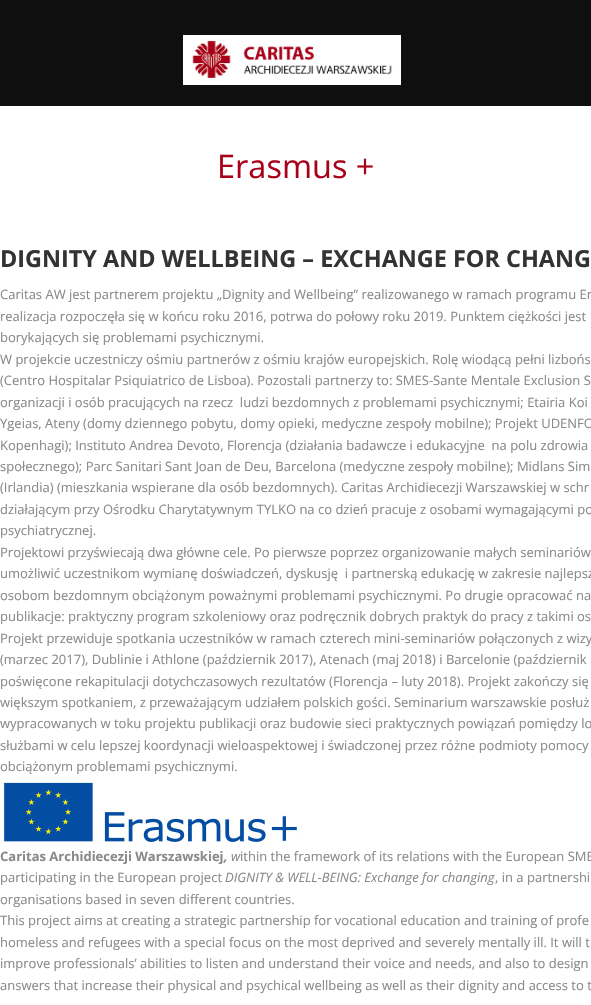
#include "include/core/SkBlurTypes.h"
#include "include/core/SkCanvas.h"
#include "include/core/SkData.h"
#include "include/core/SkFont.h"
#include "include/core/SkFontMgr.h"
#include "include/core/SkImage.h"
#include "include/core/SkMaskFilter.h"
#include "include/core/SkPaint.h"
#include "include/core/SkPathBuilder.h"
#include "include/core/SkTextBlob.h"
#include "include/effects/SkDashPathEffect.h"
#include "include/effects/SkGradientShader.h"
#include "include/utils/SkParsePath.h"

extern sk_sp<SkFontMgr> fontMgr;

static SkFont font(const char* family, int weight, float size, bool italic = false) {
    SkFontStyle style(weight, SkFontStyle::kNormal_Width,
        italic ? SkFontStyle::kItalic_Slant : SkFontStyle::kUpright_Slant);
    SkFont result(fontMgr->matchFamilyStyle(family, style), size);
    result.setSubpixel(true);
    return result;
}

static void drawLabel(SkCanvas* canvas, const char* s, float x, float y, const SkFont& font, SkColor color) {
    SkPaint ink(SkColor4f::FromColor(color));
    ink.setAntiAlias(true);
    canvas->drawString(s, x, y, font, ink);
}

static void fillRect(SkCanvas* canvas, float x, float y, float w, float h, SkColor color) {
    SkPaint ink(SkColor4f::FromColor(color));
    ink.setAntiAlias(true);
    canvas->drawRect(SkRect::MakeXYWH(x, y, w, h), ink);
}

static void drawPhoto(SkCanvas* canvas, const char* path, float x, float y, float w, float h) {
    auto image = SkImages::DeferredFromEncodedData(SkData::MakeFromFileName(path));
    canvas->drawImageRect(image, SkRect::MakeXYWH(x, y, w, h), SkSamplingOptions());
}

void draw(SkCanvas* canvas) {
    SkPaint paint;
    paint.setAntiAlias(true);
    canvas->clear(0xFFFFFFFF);
    fillRect(canvas, 0, 0, 591, 106, 0xFF0F0F0F);
    drawPhoto(canvas, "assets/img1.png", 183, 35, 218, 50);
    SkFont font1 = font("Open Sans", 400, 32.5f);
    drawLabel(canvas, "Erasmus +", 217, 178, font1, 0xFFA9011A);
    SkFont font2 = font("Open Sans", 700, 23.4f);
    drawLabel(canvas, "DIGNITY AND WELLBEING – EXCHANGE FOR CHANG", 0, 267, font2, 0xFF333333);
    SkFont font3 = font("Open Sans", 400, 13);
    drawLabel(canvas, "Caritas AW jest partnerem projektu „Dignity and Wellbeing” realizowanego w ramach programu Er", 0, 299, font3, 0xFF8A8A8A);
    drawLabel(canvas, "realizacja rozpoczęła się w końcu roku 2016, potrwa do połowy roku 2019. Punktem ciężkości jest", 0, 321, font3, 0xFF8A8A8A);
    drawLabel(canvas, "borykających się problemami psychicznymi.", 0, 342, font3, 0xFF8A8A8A);
    drawLabel(canvas, "W projekcie uczestniczy ośmiu partnerów z ośmiu krajów europejskich. Rolę wiodącą pełni lizbońs", 0, 364, font3, 0xFF8A8A8A);
    drawLabel(canvas, "(Centro Hospitalar Psiquiatrico de Lisboa). Pozostali partnerzy to: SMES-Sante Mentale Exclusion S", 0, 385, font3, 0xFF8A8A8A);
    drawLabel(canvas, "organizacji i osób pracujących na rzecz  ludzi bezdomnych z problemami psychicznymi; Etairia Koi", 0, 407, font3, 0xFF8A8A8A);
    drawLabel(canvas, "Ygeias, Ateny (domy dziennego pobytu, domy opieki, medyczne zespoły mobilne); Projekt UDENFO", 0, 428, font3, 0xFF8A8A8A);
    drawLabel(canvas, "Kopenhagi); Instituto Andrea Devoto, Florencja (działania badawcze i edukacyjne  na polu zdrowia", 0, 450, font3, 0xFF8A8A8A);
    drawLabel(canvas, "społecznego); Parc Sanitari Sant Joan de Deu, Barcelona (medyczne zespoły mobilne); Midlans Sim", 0, 471, font3, 0xFF8A8A8A);
    drawLabel(canvas, "(Irlandia) (mieszkania wspierane dla osób bezdomnych). Caritas Archidiecezji Warszawskiej w schr", 0, 492, font3, 0xFF8A8A8A);
    drawLabel(canvas, "działającym przy Ośrodku Charytatywnym TYLKO na co dzień pracuje z osobami wymagającymi po", 0, 514, font3, 0xFF8A8A8A);
    drawLabel(canvas, "psychiatrycznej.", 0, 535, font3, 0xFF8A8A8A);
    drawLabel(canvas, "Projektowi przyświecają dwa główne cele. Po pierwsze poprzez organizowanie małych seminariów", 0, 557, font3, 0xFF8A8A8A);
    drawLabel(canvas, "umożliwić uczestnikom wymianę doświadczeń, dyskusję  i partnerską edukację w zakresie najlepsz", 0, 578, font3, 0xFF8A8A8A);
    drawLabel(canvas, "osobom bezdomnym obciążonym poważnymi problemami psychicznymi. Po drugie opracować na", 0, 600, font3, 0xFF8A8A8A);
    drawLabel(canvas, "publikacje: praktyczny program szkoleniowy oraz podręcznik dobrych praktyk do pracy z takimi os", 0, 621, font3, 0xFF8A8A8A);
    drawLabel(canvas, "Projekt przewiduje spotkania uczestników w ramach czterech mini-seminariów połączonych z wizy", 0, 643, font3, 0xFF8A8A8A);
    drawLabel(canvas, "(marzec 2017), Dublinie i Athlone (październik 2017), Atenach (maj 2018) i Barcelonie (październik", 0, 664, font3, 0xFF8A8A8A);
    drawLabel(canvas, "poświęcone rekapitulacji dotychczasowych rezultatów (Florencja – luty 2018). Projekt zakończy się", 0, 686, font3, 0xFF8A8A8A);
    drawLabel(canvas, "większym spotkaniem, z przeważającym udziałem polskich gości. Seminarium warszawskie posłuż", 0, 707, font3, 0xFF8A8A8A);
    drawLabel(canvas, "wypracowanych w toku projektu publikacji oraz budowie sieci praktycznych powiązań pomiędzy lo", 0, 728, font3, 0xFF8A8A8A);
    drawLabel(canvas, "służbami w celu lepszej koordynacji wieloaspektowej i świadczonej przez różne podmioty pomocy", 0, 750, font3, 0xFF8A8A8A);
    drawLabel(canvas, "obciążonym problemami psychicznymi.", 0, 771, font3, 0xFF8A8A8A);
    drawPhoto(canvas, "assets/img2.png", 0, 778, 300, 64);
    SkFont font4 = font("Open Sans", 700, 13);
    drawLabel(canvas, "Caritas Archidiecezji Warszawskiej", 0, 861, font4, 0xFF8A8A8A);
    SkFont font5 = font("Open Sans", 700, 13, true);
    drawLabel(canvas, ",", 224, 861, font5, 0xFF8A8A8A);
    SkFont font6 = font("Open Sans", 400, 13, true);
    drawLabel(canvas, "w", 231, 861, font6, 0xFF8A8A8A);
    drawLabel(canvas, "ithin the framework of its relations with the European SME", 240, 861, font3, 0xFF8A8A8A);
    drawLabel(canvas, "participating in the European project", 0, 882, font3, 0xFF8A8A8A);
    drawLabel(canvas, "DIGNITY & WELL-BEING: Exchange for changing", 225, 882, font6, 0xFF8A8A8A);
    drawLabel(canvas, ", in a partnershi", 495, 882, font3, 0xFF8A8A8A);
    drawLabel(canvas, "organisations based in seven different countries.", 0, 904, font3, 0xFF8A8A8A);
    drawLabel(canvas, "This project aims at creating a strategic partnership for vocational education and training of profe", 0, 925, font3, 0xFF8A8A8A);
    drawLabel(canvas, "homeless and refugees with a special focus on the most deprived and severely mentally ill. It will t", 0, 947, font3, 0xFF8A8A8A);
    drawLabel(canvas, "improve professionals’ abilities to listen and understand their voice and needs, and also to design", 0, 968, font3, 0xFF8A8A8A);
    drawLabel(canvas, "answers that increase their physical and psychical wellbeing as well as their dignity and access to t", 0, 990, font3, 0xFF8A8A8A);
}
